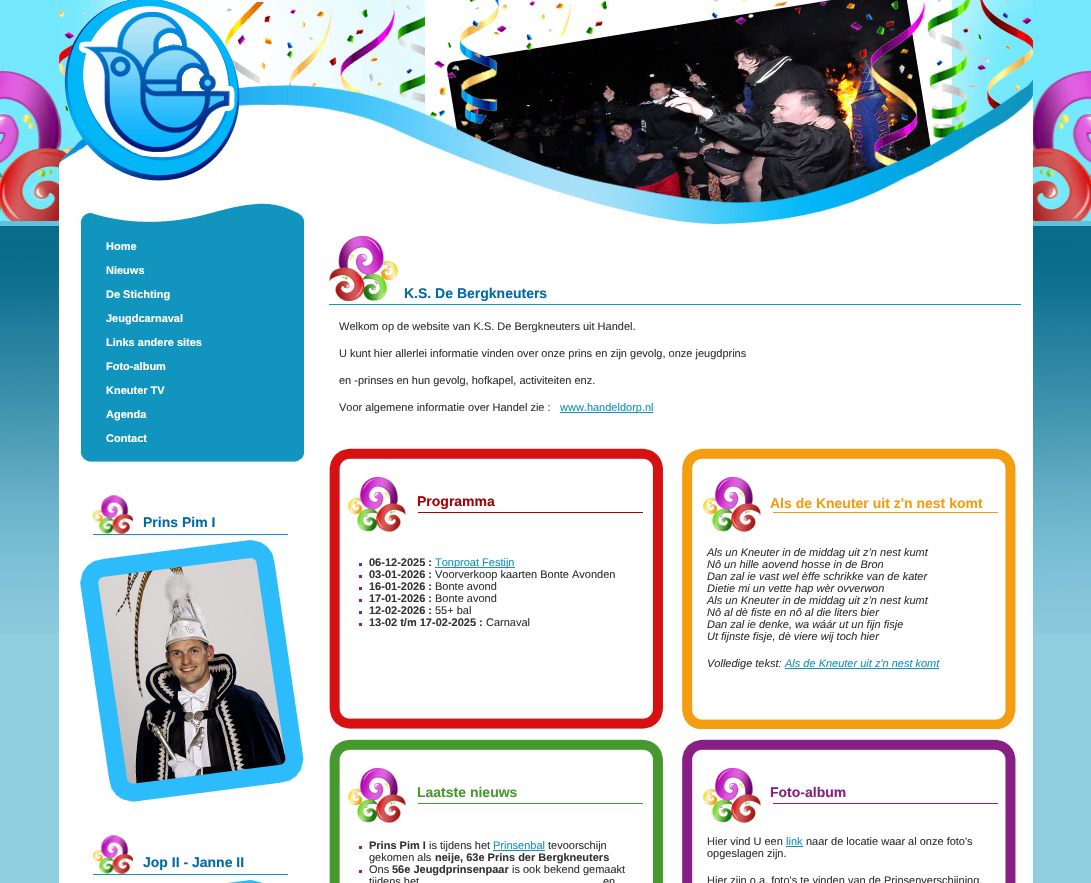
#include "include/core/SkBlurTypes.h"
#include "include/core/SkCanvas.h"
#include "include/core/SkData.h"
#include "include/core/SkFont.h"
#include "include/core/SkFontMgr.h"
#include "include/core/SkImage.h"
#include "include/core/SkMaskFilter.h"
#include "include/core/SkPaint.h"
#include "include/core/SkPathBuilder.h"
#include "include/core/SkTextBlob.h"
#include "include/effects/SkDashPathEffect.h"
#include "include/effects/SkGradientShader.h"
#include "include/utils/SkParsePath.h"

extern sk_sp<SkFontMgr> fontMgr;

static SkFont font(const char* family, int weight, float size, bool italic = false) {
    SkFontStyle style(weight, SkFontStyle::kNormal_Width,
        italic ? SkFontStyle::kItalic_Slant : SkFontStyle::kUpright_Slant);
    SkFont result(fontMgr->matchFamilyStyle(family, style), size);
    result.setSubpixel(true);
    return result;
}

static void drawLabel(SkCanvas* canvas, const char* s, float x, float y, const SkFont& font, SkColor color) {
    SkPaint ink(SkColor4f::FromColor(color));
    ink.setAntiAlias(true);
    canvas->drawString(s, x, y, font, ink);
}

static void fillRect(SkCanvas* canvas, float x, float y, float w, float h, SkColor color) {
    SkPaint ink(SkColor4f::FromColor(color));
    ink.setAntiAlias(true);
    canvas->drawRect(SkRect::MakeXYWH(x, y, w, h), ink);
}

static void drawPhoto(SkCanvas* canvas, const char* path, float x, float y, float w, float h) {
    auto image = SkImages::DeferredFromEncodedData(SkData::MakeFromFileName(path));
    canvas->drawImageRect(image, SkRect::MakeXYWH(x, y, w, h), SkSamplingOptions());
}

void draw(SkCanvas* canvas) {
    SkPaint paint;
    paint.setAntiAlias(true);
    canvas->clear(0xFF8FCDE0);
    drawPhoto(canvas, "assets/img1.png", 0, 0, 1091, 634);
    drawPhoto(canvas, "assets/img2.png", 59, 0, 974, 226);
    drawPhoto(canvas, "assets/img3.png", 59, 0, 246, 184);
    drawPhoto(canvas, "assets/img4.png", 425, 0, 527, 203);
    fillRect(canvas, 59, 226, 974, 657, 0xFFFFFFFF);
    fillRect(canvas, 81, 226, 223, 227, 0xFF1194BE);
    drawPhoto(canvas, "assets/img5.png", 81, 453, 223, 9);
    SkFont font1 = font("Liberation Sans", 700, 11);
    drawLabel(canvas, "Home", 106, 250, font1, 0xFFFFFFFF);
    drawLabel(canvas, "Nieuws", 106, 274, font1, 0xFFFFFFFF);
    drawLabel(canvas, "De Stichting", 106, 298, font1, 0xFFFFFFFF);
    drawLabel(canvas, "Jeugdcarnaval", 106, 322, font1, 0xFFFFFFFF);
    drawLabel(canvas, "Links andere sites", 106, 346, font1, 0xFFFFFFFF);
    drawLabel(canvas, "Foto-album", 106, 370, font1, 0xFFFFFFFF);
    drawLabel(canvas, "Kneuter TV", 106, 394, font1, 0xFFFFFFFF);
    drawLabel(canvas, "Agenda", 106, 418, font1, 0xFFFFFFFF);
    drawLabel(canvas, "Contact", 106, 442, font1, 0xFFFFFFFF);
    drawPhoto(canvas, "assets/img6.png", 93, 495, 40, 39);
    fillRect(canvas, 93, 534, 195, 1, 0xFF1194BE);
    SkFont font2 = font("Liberation Sans", 700, 14);
    drawLabel(canvas, "Prins Pim I", 143, 527, font2, 0xFF016AA7);
    drawPhoto(canvas, "assets/img7.png", 80, 540, 224, 262);
    drawPhoto(canvas, "assets/img6.png", 93, 835, 40, 39);
    fillRect(canvas, 93, 874, 195, 1, 0xFF1194BE);
    drawLabel(canvas, "Jop II - Janne II", 143, 867, font2, 0xFF016AA7);
    drawPhoto(canvas, "assets/img8.png", 227, 880, 35, 3);
    drawPhoto(canvas, "assets/img9.png", 329, 236, 69, 65);
    fillRect(canvas, 329, 304, 692, 1, 0xFF1194BE);
    drawLabel(canvas, "K.S. De Bergkneuters", 404, 298, font2, 0xFF016AA7);
    SkFont font3 = font("Liberation Sans", 400, 11);
    drawLabel(canvas, "Welkom op de website van K.S. De Bergkneuters uit Handel.", 339, 330, font3, 0xFF333333);
    drawLabel(canvas, "U kunt hier allerlei informatie vinden over onze prins en zijn gevolg, onze jeugdprins", 339, 357, font3, 0xFF333333);
    drawLabel(canvas, "en -prinses en hun gevolg, hofkapel, activiteiten enz.", 339, 384, font3, 0xFF333333);
    drawLabel(canvas, "Voor algemene informatie over Handel zie :", 339, 411, font3, 0xFF333333);
    fillRect(canvas, 560, 412, 93, 1, 0xFF1194BE);
    drawLabel(canvas, "www.handeldorp.nl", 560, 411, font3, 0xFF1194BE);
    drawPhoto(canvas, "assets/img10.png", 329, 448, 334, 281);
    drawLabel(canvas, "Programma", 417, 506, font2, 0xFFA20303);
    fillRect(canvas, 359, 563, 3, 3, 0xFF872082);
    drawLabel(canvas, "06-12-2025 :", 369, 566, font1, 0xFF333333);
    fillRect(canvas, 435, 567, 80, 1, 0xFF1194BE);
    drawLabel(canvas, "Tonproat Festijn", 435, 566, font3, 0xFF1194BE);
    fillRect(canvas, 359, 575, 3, 3, 0xFF872082);
    drawLabel(canvas, "03-01-2026 :", 369, 578, font1, 0xFF333333);
    drawLabel(canvas, "Voorverkoop kaarten Bonte Avonden", 435, 578, font3, 0xFF333333);
    fillRect(canvas, 359, 587, 3, 3, 0xFF872082);
    drawLabel(canvas, "16-01-2026 :", 369, 590, font1, 0xFF333333);
    drawLabel(canvas, "Bonte avond", 435, 590, font3, 0xFF333333);
    fillRect(canvas, 359, 599, 3, 3, 0xFF872082);
    drawLabel(canvas, "17-01-2026 :", 369, 602, font1, 0xFF333333);
    drawLabel(canvas, "Bonte avond", 435, 602, font3, 0xFF333333);
    fillRect(canvas, 359, 611, 3, 3, 0xFF872082);
    drawLabel(canvas, "12-02-2026 :", 369, 614, font1, 0xFF333333);
    drawLabel(canvas, "55+ bal", 435, 614, font3, 0xFF333333);
    fillRect(canvas, 359, 623, 3, 3, 0xFF872082);
    drawLabel(canvas, "13-02 t/m 17-02-2025 :", 369, 626, font1, 0xFF333333);
    drawLabel(canvas, "Carnaval", 486, 626, font3, 0xFF333333);
    drawPhoto(canvas, "assets/img11.png", 682, 448, 334, 281);
    drawLabel(canvas, "Als de Kneuter uit z'n nest komt", 770, 508, font2, 0xFFF39D12);
    SkFont font4 = font("Liberation Sans", 400, 11, true);
    drawLabel(canvas, "Als un Kneuter in de middag uit z’n nest kumt", 707, 556, font4, 0xFF333333);
    drawLabel(canvas, "Nô un hille aovend hosse in de Bron", 707, 568, font4, 0xFF333333);
    drawLabel(canvas, "Dan zal ie vast wel èffe schrikke van de kater", 707, 580, font4, 0xFF333333);
    drawLabel(canvas, "Dietie mi un vette hap wèr ovverwon", 707, 592, font4, 0xFF333333);
    drawLabel(canvas, "Als un Kneuter in de middag uit z’n nest kumt", 707, 604, font4, 0xFF333333);
    drawLabel(canvas, "Nô al dè fiste en nô al die liters bier", 707, 616, font4, 0xFF333333);
    drawLabel(canvas, "Dan zal ie denke, wa wáár ut un fijn fisje", 707, 628, font4, 0xFF333333);
    drawLabel(canvas, "Ut fijnste fisje, dè viere wij toch hier", 707, 640, font4, 0xFF333333);
    drawLabel(canvas, "Volledige tekst:", 707, 667, font4, 0xFF333333);
    drawLabel(canvas, "Als de Kneuter uit z'n nest komt", 785, 667, font4, 0xFF1194BE);
    fillRect(canvas, 785, 668, 154, 1, 0xFF1194BE);
    drawPhoto(canvas, "assets/img12.png", 329, 739, 334, 144);
    drawLabel(canvas, "Laatste nieuws", 417, 797, font2, 0xFF45992F);
    fillRect(canvas, 359, 846, 3, 3, 0xFF872082);
    drawLabel(canvas, "Prins Pim I", 369, 849, font1, 0xFF333333);
    drawLabel(canvas, "is tijdens het", 429, 849, font3, 0xFF333333);
    drawLabel(canvas, "Prinsenbal", 493, 849, font3, 0xFF1194BE);
    fillRect(canvas, 493, 850, 52, 1, 0xFF1194BE);
    drawLabel(canvas, "tevoorschijn", 548, 849, font3, 0xFF333333);
    drawLabel(canvas, "gekomen als", 369, 861, font3, 0xFF333333);
    drawLabel(canvas, "neije, 63e Prins der Bergkneuters", 435, 861, font1, 0xFF333333);
    fillRect(canvas, 359, 870, 3, 3, 0xFF872082);
    drawLabel(canvas, "Ons", 369, 873, font3, 0xFF333333);
    drawLabel(canvas, "56e Jeugdprinsenpaar", 392, 873, font1, 0xFF333333);
    drawLabel(canvas, "is ook bekend gemaakt", 512, 873, font3, 0xFF333333);
    drawLabel(canvas, "tijdens het", 369, 885, font3, 0xFF333333);
    drawLabel(canvas, "en", 603, 885, font3, 0xFF333333);
    drawPhoto(canvas, "assets/img13.png", 682, 739, 334, 144);
    drawLabel(canvas, "Foto-album", 770, 797, font2, 0xFF872082);
    drawLabel(canvas, "Hier vind U een", 707, 845, font3, 0xFF333333);
    drawLabel(canvas, "link", 786, 845, font3, 0xFF1194BE);
    fillRect(canvas, 786, 846, 17, 1, 0xFF1194BE);
    drawLabel(canvas, "naar de locatie waar al onze foto's", 806, 845, font3, 0xFF333333);
    drawLabel(canvas, "opgeslagen zijn.", 707, 857, font3, 0xFF333333);
    drawLabel(canvas, "Hier zijn o.a. foto's te vinden van de Prinsenverschijning,", 707, 884, font3, 0xFF333333);
}
